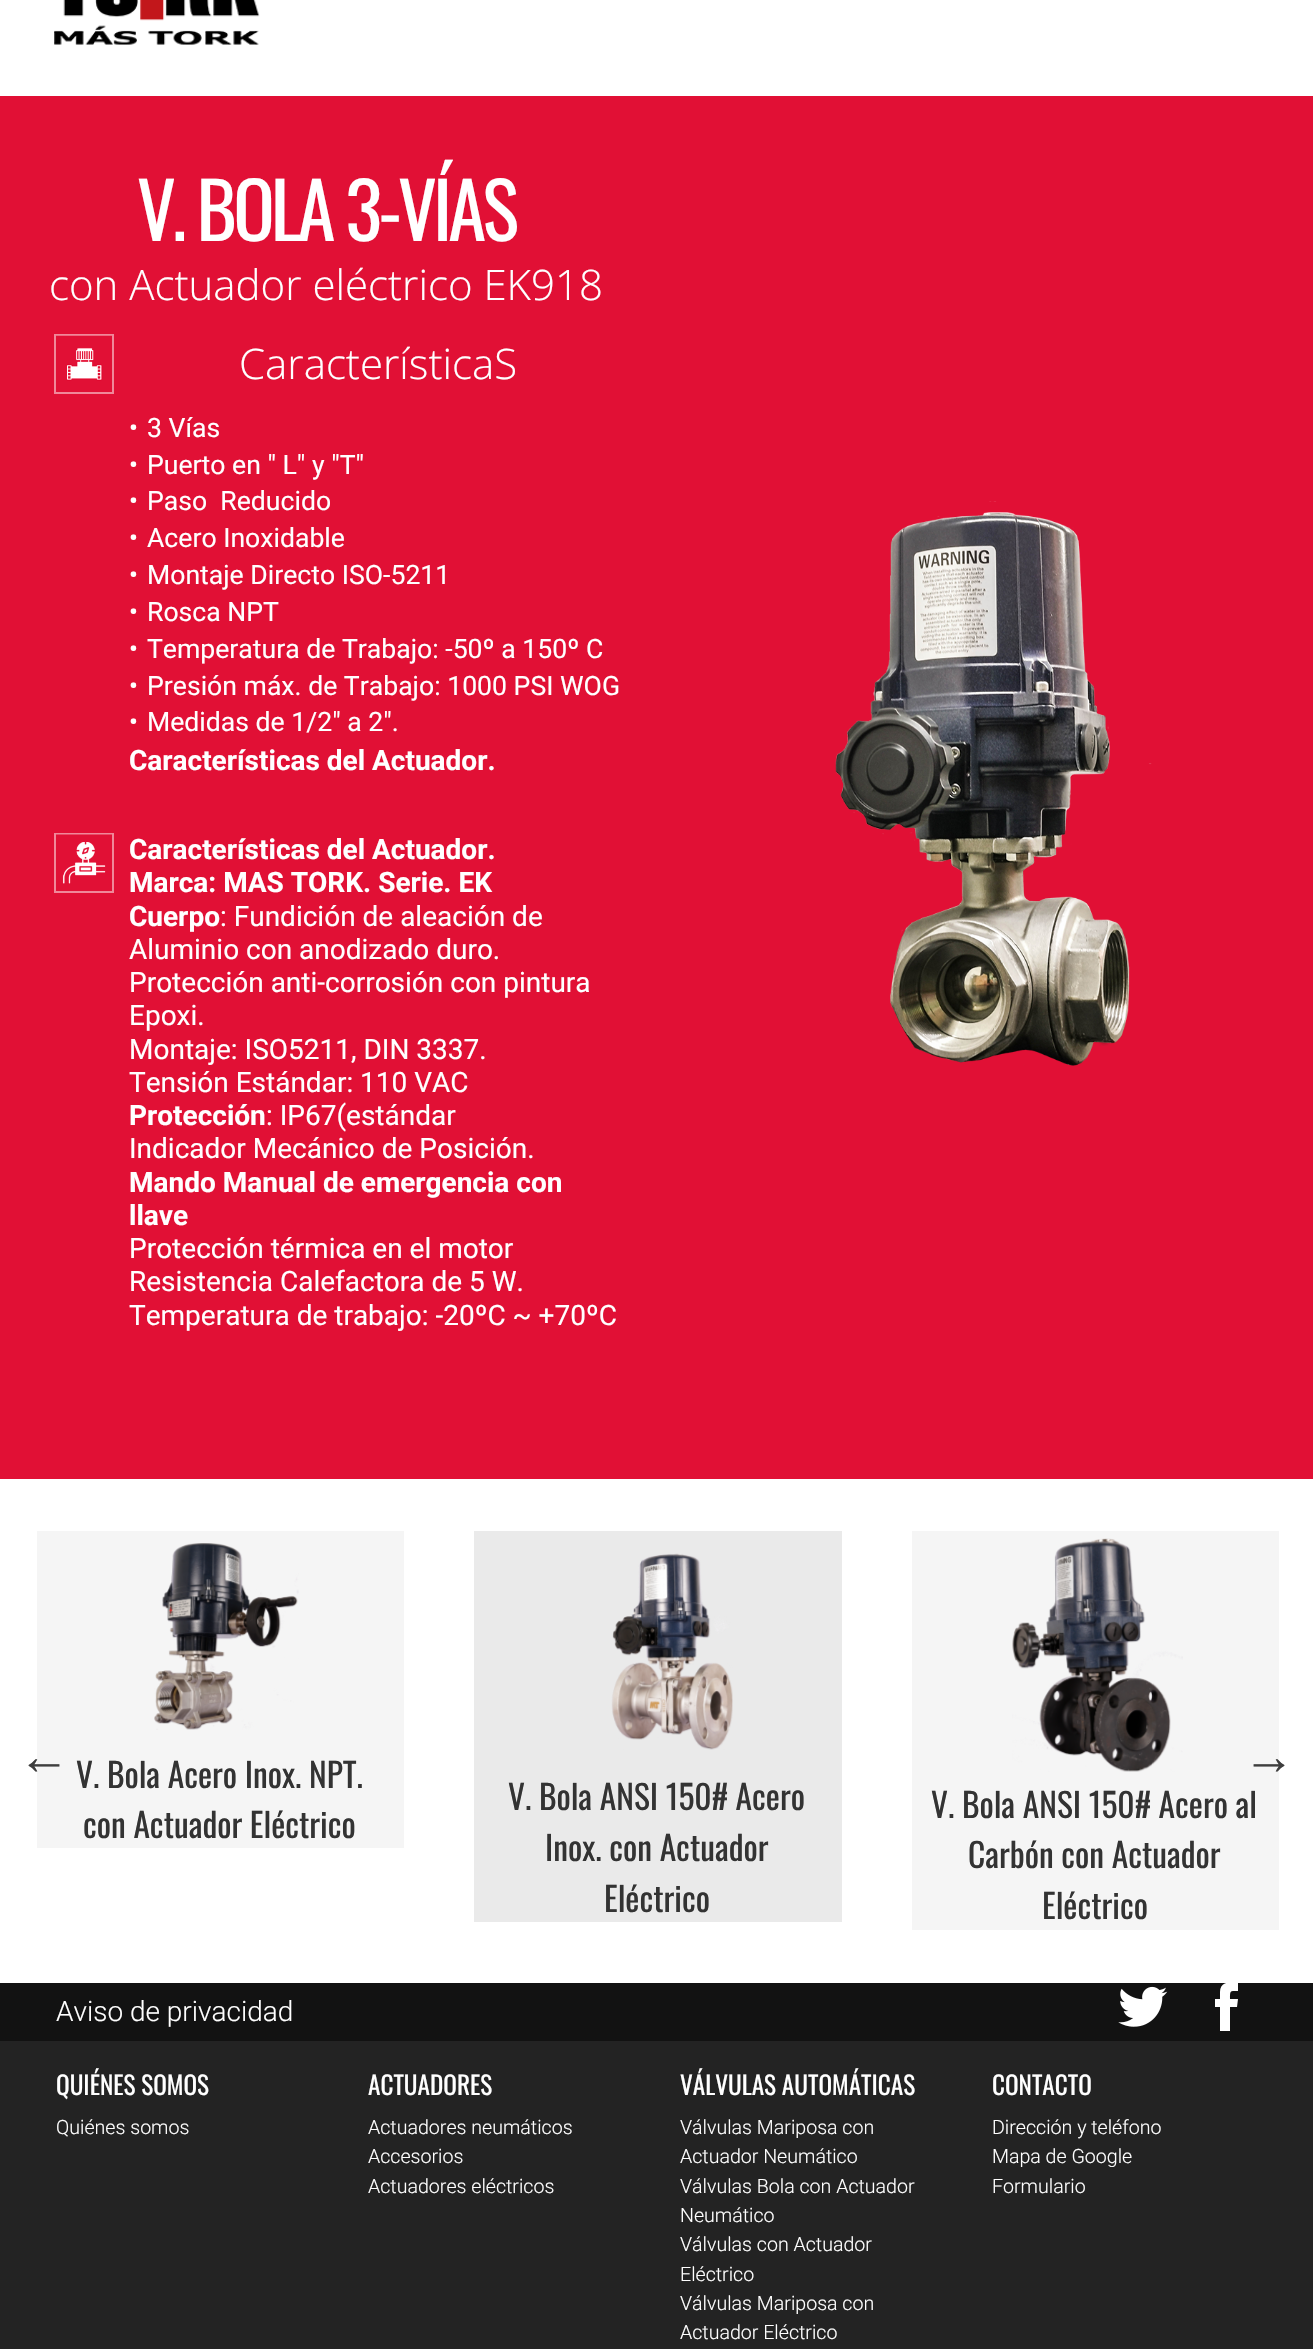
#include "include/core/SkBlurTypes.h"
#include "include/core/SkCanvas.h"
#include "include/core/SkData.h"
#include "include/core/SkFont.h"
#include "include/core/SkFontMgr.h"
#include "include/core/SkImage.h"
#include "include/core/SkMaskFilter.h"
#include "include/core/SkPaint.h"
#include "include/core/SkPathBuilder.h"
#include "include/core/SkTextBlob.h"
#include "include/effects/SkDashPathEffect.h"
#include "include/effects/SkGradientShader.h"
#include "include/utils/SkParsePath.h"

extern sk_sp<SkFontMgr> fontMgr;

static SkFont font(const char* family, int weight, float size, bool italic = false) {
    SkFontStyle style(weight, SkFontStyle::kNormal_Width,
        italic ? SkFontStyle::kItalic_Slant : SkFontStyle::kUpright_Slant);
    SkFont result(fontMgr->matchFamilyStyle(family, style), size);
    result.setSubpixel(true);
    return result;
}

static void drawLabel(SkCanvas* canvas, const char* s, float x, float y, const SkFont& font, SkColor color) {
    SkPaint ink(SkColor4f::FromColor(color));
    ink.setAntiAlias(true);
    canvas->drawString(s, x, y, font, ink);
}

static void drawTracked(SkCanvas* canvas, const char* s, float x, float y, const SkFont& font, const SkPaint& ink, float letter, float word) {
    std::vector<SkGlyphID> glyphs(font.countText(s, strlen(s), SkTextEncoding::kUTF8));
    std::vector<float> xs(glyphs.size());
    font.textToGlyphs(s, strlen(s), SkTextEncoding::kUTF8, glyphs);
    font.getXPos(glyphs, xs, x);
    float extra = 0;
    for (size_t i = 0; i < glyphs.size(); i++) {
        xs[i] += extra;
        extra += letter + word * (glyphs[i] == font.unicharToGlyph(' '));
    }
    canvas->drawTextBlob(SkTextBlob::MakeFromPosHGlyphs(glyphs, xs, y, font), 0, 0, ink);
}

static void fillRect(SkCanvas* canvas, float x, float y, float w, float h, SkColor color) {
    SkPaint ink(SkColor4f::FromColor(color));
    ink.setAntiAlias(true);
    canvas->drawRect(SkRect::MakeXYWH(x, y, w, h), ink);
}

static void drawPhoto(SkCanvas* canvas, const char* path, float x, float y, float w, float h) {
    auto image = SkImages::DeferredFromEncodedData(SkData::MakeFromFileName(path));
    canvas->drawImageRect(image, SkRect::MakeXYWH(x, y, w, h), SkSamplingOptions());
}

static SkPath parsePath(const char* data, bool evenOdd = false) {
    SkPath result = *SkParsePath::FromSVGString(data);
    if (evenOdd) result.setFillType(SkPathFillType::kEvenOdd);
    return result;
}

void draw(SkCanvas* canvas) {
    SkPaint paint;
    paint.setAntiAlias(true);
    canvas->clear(0xFFFFFFFF);
    drawPhoto(canvas, "assets/img1.png", 54, 0, 206, 45);
    fillRect(canvas, 0, 96, 1313, 1383, 0xFFE11035);
    SkFont font1 = font("Oswald", 400, 77);
    paint.setColor(0xFFFFFFFF);
    drawTracked(canvas, "V. BOLA 3-VÍAS", 137, 241, font1, paint, -3.8f, 0);
    SkFont font2 = font("Open Sans", 300, 42);
    drawLabel(canvas, "con Actuador eléctrico EK918", 49, 300, font2, 0xFFFFFFFF);
    paint.setStroke(true);
    paint.setStrokeWidth(2);
    paint.setColor(0xFFF0889A);
    canvas->drawRect(SkRect::MakeXYWH(55, 335, 58, 58), paint);
    drawPhoto(canvas, "assets/img2.png", 56, 335, 56, 46);
    drawLabel(canvas, "CaracterísticaS", 239, 379, font2, 0xFFFFFFFF);
    SkFont font3 = font("Roboto", 400, 26.6f);
    drawLabel(canvas, "•", 129, 437, font3, 0xFFFFFFFF);
    drawLabel(canvas, "3 Vías", 147, 437, font3, 0xFFFFFFFF);
    drawLabel(canvas, "•", 129, 474, font3, 0xFFFFFFFF);
    drawLabel(canvas, "Puerto en \" L\" y \"T\"", 147, 474, font3, 0xFFFFFFFF);
    drawLabel(canvas, "•", 129, 510, font3, 0xFFFFFFFF);
    drawLabel(canvas, "Paso  Reducido", 147, 510, font3, 0xFFFFFFFF);
    drawLabel(canvas, "•", 129, 547, font3, 0xFFFFFFFF);
    drawLabel(canvas, "Acero Inoxidable", 147, 547, font3, 0xFFFFFFFF);
    drawLabel(canvas, "•", 129, 584, font3, 0xFFFFFFFF);
    drawLabel(canvas, "Montaje Directo ISO-5211", 147, 584, font3, 0xFFFFFFFF);
    drawLabel(canvas, "•", 129, 621, font3, 0xFFFFFFFF);
    drawLabel(canvas, "Rosca NPT", 147, 621, font3, 0xFFFFFFFF);
    drawLabel(canvas, "•", 129, 658, font3, 0xFFFFFFFF);
    drawLabel(canvas, "Temperatura de Trabajo: -50º a 150º C", 147, 658, font3, 0xFFFFFFFF);
    drawLabel(canvas, "•", 129, 695, font3, 0xFFFFFFFF);
    drawLabel(canvas, "Presión máx. de Trabajo: 1000 PSI WOG", 147, 695, font3, 0xFFFFFFFF);
    drawLabel(canvas, "•", 129, 731, font3, 0xFFFFFFFF);
    drawLabel(canvas, "Medidas de 1/2\" a 2\".", 147, 731, font3, 0xFFFFFFFF);
    SkFont font4 = font("Roboto", 700, 28);
    drawLabel(canvas, "Características del Actuador.", 129, 770, font4, 0xFFFFFFFF);
    canvas->drawRect(SkRect::MakeXYWH(55, 834, 58, 58), paint);
    drawPhoto(canvas, "assets/img3.png", 56, 834, 56, 50);
    drawLabel(canvas, "Características del Actuador.", 129, 859, font4, 0xFFFFFFFF);
    drawLabel(canvas, "Marca: MAS TORK. Serie. EK", 129, 892, font4, 0xFFFFFFFF);
    drawLabel(canvas, "Cuerpo", 129, 926, font4, 0xFFFFFFFF);
    SkFont font5 = font("Roboto", 400, 28);
    drawLabel(canvas, ": Fundición de aleación de", 220, 926, font5, 0xFFFFFFFF);
    drawLabel(canvas, "Aluminio con anodizado duro.", 129, 959, font5, 0xFFFFFFFF);
    drawLabel(canvas, "Protección anti-corrosión con pintura", 129, 992, font5, 0xFFFFFFFF);
    drawLabel(canvas, "Epoxi.", 129, 1025, font5, 0xFFFFFFFF);
    drawLabel(canvas, "Montaje: ISO5211, DIN 3337.", 129, 1059, font5, 0xFFFFFFFF);
    drawLabel(canvas, "Tensión Estándar: 110 VAC", 129, 1092, font5, 0xFFFFFFFF);
    drawLabel(canvas, "Protección", 129, 1125, font4, 0xFFFFFFFF);
    drawLabel(canvas, ": IP67(estándar", 266, 1125, font5, 0xFFFFFFFF);
    drawLabel(canvas, "Indicador Mecánico de Posición.", 129, 1158, font5, 0xFFFFFFFF);
    drawLabel(canvas, "Mando Manual de emergencia con", 129, 1192, font4, 0xFFFFFFFF);
    drawLabel(canvas, "llave", 129, 1225, font4, 0xFFFFFFFF);
    drawLabel(canvas, "Protección térmica en el motor", 129, 1258, font5, 0xFFFFFFFF);
    drawLabel(canvas, "Resistencia Calefactora de 5 W.", 129, 1291, font5, 0xFFFFFFFF);
    drawLabel(canvas, "Temperatura de trabajo: -20ºC ~ +70ºC", 129, 1325, font5, 0xFFFFFFFF);
    drawPhoto(canvas, "assets/img4.png", 835, 501, 317, 565);
    fillRect(canvas, 37, 1531, 367, 317, 0xFFF5F5F5);
    SkFont font6 = font("Liberation Serif", 400, 52);
    drawLabel(canvas, "←", 18, 1774, font6, 0xFF3E3E3E);
    drawPhoto(canvas, "assets/img5.png", 154, 1543, 145, 187);
    SkFont font7 = font("Oswald", 400, 33.5f);
    drawLabel(canvas, "V. Bola Acero Inox. NPT.", 76, 1788, font7, 0xFF333333);
    drawLabel(canvas, "con Actuador Eléctrico", 83, 1838, font7, 0xFF333333);
    fillRect(canvas, 474, 1531, 368, 391, 0xFFEAEAEA);
    drawPhoto(canvas, "assets/img6.png", 611, 1553, 122, 197);
    drawLabel(canvas, "V. Bola ANSI 150# Acero", 508, 1810, font7, 0xFF333333);
    drawLabel(canvas, "Inox. con Actuador", 545, 1861, font7, 0xFF333333);
    drawLabel(canvas, "Eléctrico", 604, 1912, font7, 0xFF333333);
    fillRect(canvas, 912, 1531, 367, 399, 0xFFF5F5F5);
    drawPhoto(canvas, "assets/img7.png", 1012, 1538, 171, 234);
    drawLabel(canvas, "V. Bola ANSI 150# Acero al", 931, 1818, font7, 0xFF333333);
    drawLabel(canvas, "Carbón con Actuador", 968, 1868, font7, 0xFF333333);
    drawLabel(canvas, "Eléctrico", 1042, 1919, font7, 0xFF333333);
    drawLabel(canvas, "→", 1243, 1774, font6, 0xFF3E3E3E);
    fillRect(canvas, 0, 2041, 1313, 308, 0xFF232323);
    fillRect(canvas, 0, 1983, 1313, 58, 0xFF121212);
    SkFont font8 = font("Roboto", 300, 28);
    drawLabel(canvas, "Aviso de privacidad", 56, 2021, font8, 0xFFFFFFFF);
    drawPhoto(canvas, "assets/img8.png", 1118, 1986, 50, 41);
    paint.setStroke(false);
    paint.setColor(0xFFFFFFFF);
    canvas->drawPath(parsePath("M1220 1992V1999H1215V2007H1220V2031H1230V2007H1237L1238 1999H1230C1230 1990 1230 1991 1238 1991V1982C1231 1982 1220 1981 1220 1992Z"), paint);
    SkFont font9 = font("Oswald", 400, 25.25f);
    drawLabel(canvas, "QUIÉNES SOMOS", 56, 2095, font9, 0xFFFFFFFF);
    SkFont font10 = font("Roboto", 300, 19.6f);
    drawLabel(canvas, "Quiénes somos", 56, 2134, font10, 0xFFFFFFFF);
    drawLabel(canvas, "ACTUADORES", 368, 2095, font9, 0xFFFFFFFF);
    drawLabel(canvas, "Actuadores neumáticos", 368, 2134, font10, 0xFFFFFFFF);
    drawLabel(canvas, "Accesorios", 368, 2163, font10, 0xFFFFFFFF);
    drawLabel(canvas, "Actuadores eléctricos", 368, 2193, font10, 0xFFFFFFFF);
    drawLabel(canvas, "VÁLVULAS AUTOMÁTICAS", 680, 2095, font9, 0xFFFFFFFF);
    drawLabel(canvas, "Válvulas Mariposa con", 680, 2134, font10, 0xFFFFFFFF);
    drawLabel(canvas, "Actuador Neumático", 680, 2163, font10, 0xFFFFFFFF);
    drawLabel(canvas, "Válvulas Bola con Actuador", 680, 2193, font10, 0xFFFFFFFF);
    drawLabel(canvas, "Neumático", 680, 2222, font10, 0xFFFFFFFF);
    drawLabel(canvas, "Válvulas con Actuador", 680, 2251, font10, 0xFFFFFFFF);
    drawLabel(canvas, "Eléctrico", 680, 2281, font10, 0xFFFFFFFF);
    drawLabel(canvas, "Válvulas Mariposa con", 680, 2310, font10, 0xFFFFFFFF);
    drawLabel(canvas, "Actuador Eléctrico", 680, 2339, font10, 0xFFFFFFFF);
    drawLabel(canvas, "CONTACTO", 992, 2095, font9, 0xFFFFFFFF);
    drawLabel(canvas, "Dirección y teléfono", 992, 2134, font10, 0xFFFFFFFF);
    drawLabel(canvas, "Mapa de Google", 992, 2163, font10, 0xFFFFFFFF);
    drawLabel(canvas, "Formulario", 992, 2193, font10, 0xFFFFFFFF);
}
